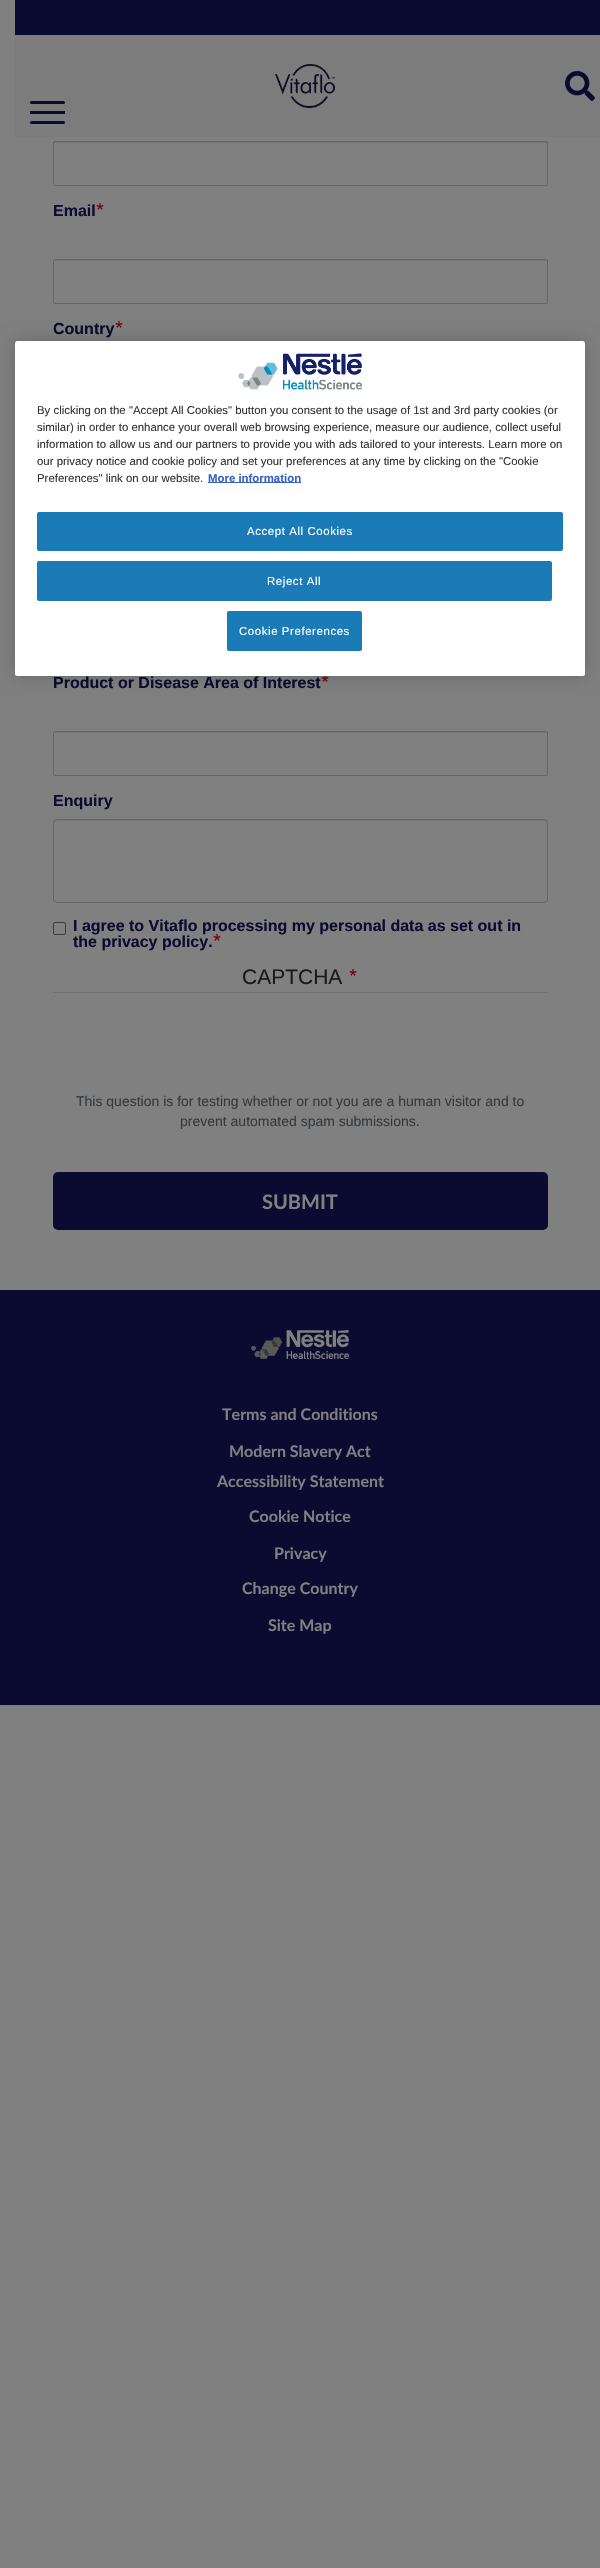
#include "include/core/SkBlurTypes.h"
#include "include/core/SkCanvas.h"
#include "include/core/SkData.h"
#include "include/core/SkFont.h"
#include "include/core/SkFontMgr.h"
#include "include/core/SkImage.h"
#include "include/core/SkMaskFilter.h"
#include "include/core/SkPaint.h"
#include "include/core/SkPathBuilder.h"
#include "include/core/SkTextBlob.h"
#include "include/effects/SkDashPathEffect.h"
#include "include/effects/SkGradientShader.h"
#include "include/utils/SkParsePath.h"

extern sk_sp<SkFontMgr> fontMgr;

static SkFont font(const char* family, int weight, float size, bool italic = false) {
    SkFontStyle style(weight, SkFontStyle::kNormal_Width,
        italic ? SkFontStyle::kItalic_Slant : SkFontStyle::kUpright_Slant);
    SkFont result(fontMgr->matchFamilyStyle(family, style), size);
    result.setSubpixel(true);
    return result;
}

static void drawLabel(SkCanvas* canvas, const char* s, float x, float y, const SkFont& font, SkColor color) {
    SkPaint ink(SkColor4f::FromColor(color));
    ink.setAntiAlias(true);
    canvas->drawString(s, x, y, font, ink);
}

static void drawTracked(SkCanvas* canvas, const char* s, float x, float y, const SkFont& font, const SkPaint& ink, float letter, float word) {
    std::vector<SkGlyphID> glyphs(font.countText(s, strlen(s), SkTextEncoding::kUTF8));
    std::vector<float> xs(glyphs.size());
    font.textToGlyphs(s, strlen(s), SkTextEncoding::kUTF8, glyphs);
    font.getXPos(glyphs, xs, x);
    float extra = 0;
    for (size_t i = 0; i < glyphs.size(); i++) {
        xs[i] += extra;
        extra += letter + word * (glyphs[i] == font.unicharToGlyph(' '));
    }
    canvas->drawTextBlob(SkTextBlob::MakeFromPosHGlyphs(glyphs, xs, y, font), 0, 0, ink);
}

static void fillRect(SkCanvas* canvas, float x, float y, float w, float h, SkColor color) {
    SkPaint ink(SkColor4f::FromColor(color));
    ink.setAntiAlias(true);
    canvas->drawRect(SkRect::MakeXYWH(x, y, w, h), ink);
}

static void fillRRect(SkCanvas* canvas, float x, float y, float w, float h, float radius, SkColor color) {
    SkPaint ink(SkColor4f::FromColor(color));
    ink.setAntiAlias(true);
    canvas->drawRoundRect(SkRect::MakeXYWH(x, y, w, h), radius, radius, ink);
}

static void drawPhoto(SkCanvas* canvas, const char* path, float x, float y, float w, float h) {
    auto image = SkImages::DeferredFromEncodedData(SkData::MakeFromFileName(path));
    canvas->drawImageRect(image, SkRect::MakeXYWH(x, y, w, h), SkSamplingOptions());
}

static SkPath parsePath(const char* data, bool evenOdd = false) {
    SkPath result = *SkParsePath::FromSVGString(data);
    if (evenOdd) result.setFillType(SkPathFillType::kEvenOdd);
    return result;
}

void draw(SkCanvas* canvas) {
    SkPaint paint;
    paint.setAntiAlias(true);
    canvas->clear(0xFF808080);
    fillRect(canvas, 15, 35, 585, 102, 0xFF7C7C7C);
    fillRect(canvas, 15, 0, 585, 35, 0xFF0B0A30);
    drawPhoto(canvas, "assets/img1.png", 275, 64, 60, 44);
    drawPhoto(canvas, "assets/img2.png", 565, 71, 30, 30);
    fillRect(canvas, 30, 111, 35, 3, 0xFF0B0A30);
    fillRRect(canvas, 30, 101, 35, 3, 1.5f, 0xFF0B0A30);
    fillRRect(canvas, 30, 121, 35, 3, 1.5f, 0xFF0B0A30);
    paint.setColor(0xFF767676);
    canvas->drawPath(parsePath("M55 143H546C547 143 547 143 547 144V142H55C54 142 54 143 54 144C54 143 54 143 55 143Z"), paint);
    paint.setStroke(true);
    paint.setStrokeWidth(1);
    paint.setColor(0xFF666666);
    canvas->drawRoundRect(SkRect::MakeXYWH(53.5f, 141.5f, 494, 44), 1.5f, 1.5f, paint);
    SkFont font1 = font("Liberation Sans", 700, 16);
    drawLabel(canvas, "Email", 53, 216, font1, 0xFF0B0A30);
    drawPhoto(canvas, "assets/img3.png", 96, 203, 8, 7);
    paint.setStroke(false);
    paint.setColor(0xFF767676);
    canvas->drawPath(parsePath("M55 261H546C547 261 547 261 547 262V260H55C54 260 54 261 54 262C54 261 54 261 55 261Z"), paint);
    paint.setStroke(true);
    paint.setColor(0xFF666666);
    canvas->drawRoundRect(SkRect::MakeXYWH(53.5f, 259.5f, 494, 44), 1.5f, 1.5f, paint);
    drawLabel(canvas, "Country", 53, 334, font1, 0xFF0B0A30);
    drawPhoto(canvas, "assets/img3.png", 115, 321, 8, 7);
    drawLabel(canvas, "Product or Disease Area of Interest", 53, 688, font1, 0xFF0B0A30);
    drawPhoto(canvas, "assets/img4.png", 321, 676, 8, 6);
    paint.setStroke(false);
    paint.setColor(0xFF767676);
    canvas->drawPath(parsePath("M55 733H546C547 733 547 733 547 734V732H55C54 732 54 733 54 734C54 733 54 733 55 733Z"), paint);
    paint.setStroke(true);
    paint.setColor(0xFF666666);
    canvas->drawRoundRect(SkRect::MakeXYWH(53.5f, 731.5f, 494, 44), 1.5f, 1.5f, paint);
    drawLabel(canvas, "Enquiry", 53, 806, font1, 0xFF0B0A30);
    paint.setStroke(false);
    paint.setColor(0xFF767676);
    canvas->drawPath(parsePath("M57 821H544C546 821 547 822 547 824V823C547 821 546 820 544 820H57C55 820 54 821 54 823V824C54 822 55 821 57 821Z"), paint);
    paint.setStroke(true);
    paint.setColor(0xFF666666);
    canvas->drawRoundRect(SkRect::MakeXYWH(53.5f, 819.5f, 494, 83), 3.5f, 3.5f, paint);
    paint.setColor(0xFF3B3B3B);
    canvas->drawRoundRect(SkRect::MakeXYWH(53.5f, 922.5f, 12, 12), 1.5f, 1.5f, paint);
    drawLabel(canvas, "I agree to Vitaflo processing my personal data as set out in", 73, 931, font1, 0xFF0B0A30);
    drawLabel(canvas, "the privacy policy.", 73, 947, font1, 0xFF0B0A30);
    drawPhoto(canvas, "assets/img3.png", 213, 934, 8, 7);
    fillRect(canvas, 53, 992, 495, 1, 0xFF737373);
    SkFont font2 = font("Liberation Sans", 400, 21);
    drawLabel(canvas, "CAPTCHA", 242, 984, font2, 0xFF1A1A1A);
    drawPhoto(canvas, "assets/img3.png", 349, 969, 8, 7);
    SkFont font3 = font("Liberation Sans", 400, 14);
    drawLabel(canvas, "This question is for testing whether or not you are a human visitor and to", 76, 1106, font3, 0xFF353A3E);
    drawLabel(canvas, "prevent automated spam submissions.", 180, 1126, font3, 0xFF353A3E);
    fillRRect(canvas, 53, 1172, 495, 58, 5, 0xFF0B0A30);
    SkFont font4 = font("Lato", 700, 20);
    drawLabel(canvas, "SUBMIT", 262, 1209, font4, 0xFF808080);
    fillRect(canvas, 0, 1290, 600, 415, 0xFF0B0A30);
    drawPhoto(canvas, "assets/img5.png", 251, 1330, 98, 29);
    SkFont font5 = font("Lato", 700, 16);
    drawLabel(canvas, "Terms and Conditions", 222, 1420, font5, 0xFF808080);
    drawLabel(canvas, "Modern Slavery Act", 229, 1457, font5, 0xFF808080);
    drawLabel(canvas, "Accessibility Statement", 217, 1487, font5, 0xFF808080);
    drawLabel(canvas, "Cookie Notice", 249, 1522, font5, 0xFF808080);
    drawLabel(canvas, "Privacy", 274, 1559, font5, 0xFF808080);
    drawLabel(canvas, "Change Country", 242, 1594, font5, 0xFF808080);
    drawLabel(canvas, "Site Map", 268, 1631, font5, 0xFF808080);
    paint.setStroke(false);
    paint.setColor(0x33000000);
    paint.setMaskFilter(SkMaskFilter::MakeBlur(kNormal_SkBlurStyle, 9));
    canvas->drawRoundRect(SkRect::MakeXYWH(15, 341, 570, 335), 2.5f, 2.5f, paint);
    paint.setMaskFilter(nullptr);
    fillRRect(canvas, 15, 341, 570, 335, 2.5f, 0xFFFFFFFF);
    drawPhoto(canvas, "assets/img6.png", 238, 353, 124, 37);
    SkFont font6 = font("Liberation Sans", 400, 11.4f);
    drawLabel(canvas, "By clicking on the \"Accept All Cookies\" button you consent to the usage of 1st and 3rd party cookies (or", 37, 414, font6, 0xFF333333);
    drawLabel(canvas, "similar) in order to enhance your overall web browsing experience, measure our audience, collect useful", 37, 431, font6, 0xFF333333);
    drawLabel(canvas, "information to allow us and our partners to provide you with ads tailored to your interests. Learn more on", 37, 448, font6, 0xFF333333);
    drawLabel(canvas, "our privacy notice and cookie policy and set your preferences at any time by clicking on the \"Cookie", 37, 465, font6, 0xFF333333);
    drawLabel(canvas, "Preferences\" link on our website.", 37, 482, font6, 0xFF333333);
    fillRect(canvas, 208, 482, 93, 1, 0xFF3860BE);
    SkFont font7 = font("Liberation Sans", 700, 11.4f);
    drawLabel(canvas, "More information", 208, 482, font7, 0xFF3860BE);
    fillRRect(canvas, 37, 512, 526, 39, 2, 0xFF1B7BB7);
    paint.setColor(0xFFFFFFFF);
    drawTracked(canvas, "Accept All Cookies", 247, 535, font6, paint, 0.6f, 0);
    fillRRect(canvas, 37, 561, 515, 40, 2, 0xFF1B7BB7);
    drawTracked(canvas, "Reject All", 267, 585, font6, paint, 0.6f, 0);
    fillRRect(canvas, 227, 611, 135, 40, 2, 0xFF1B7BB7);
    drawTracked(canvas, "Cookie Preferences", 239, 635, font6, paint, 0.6f, 0);
}
